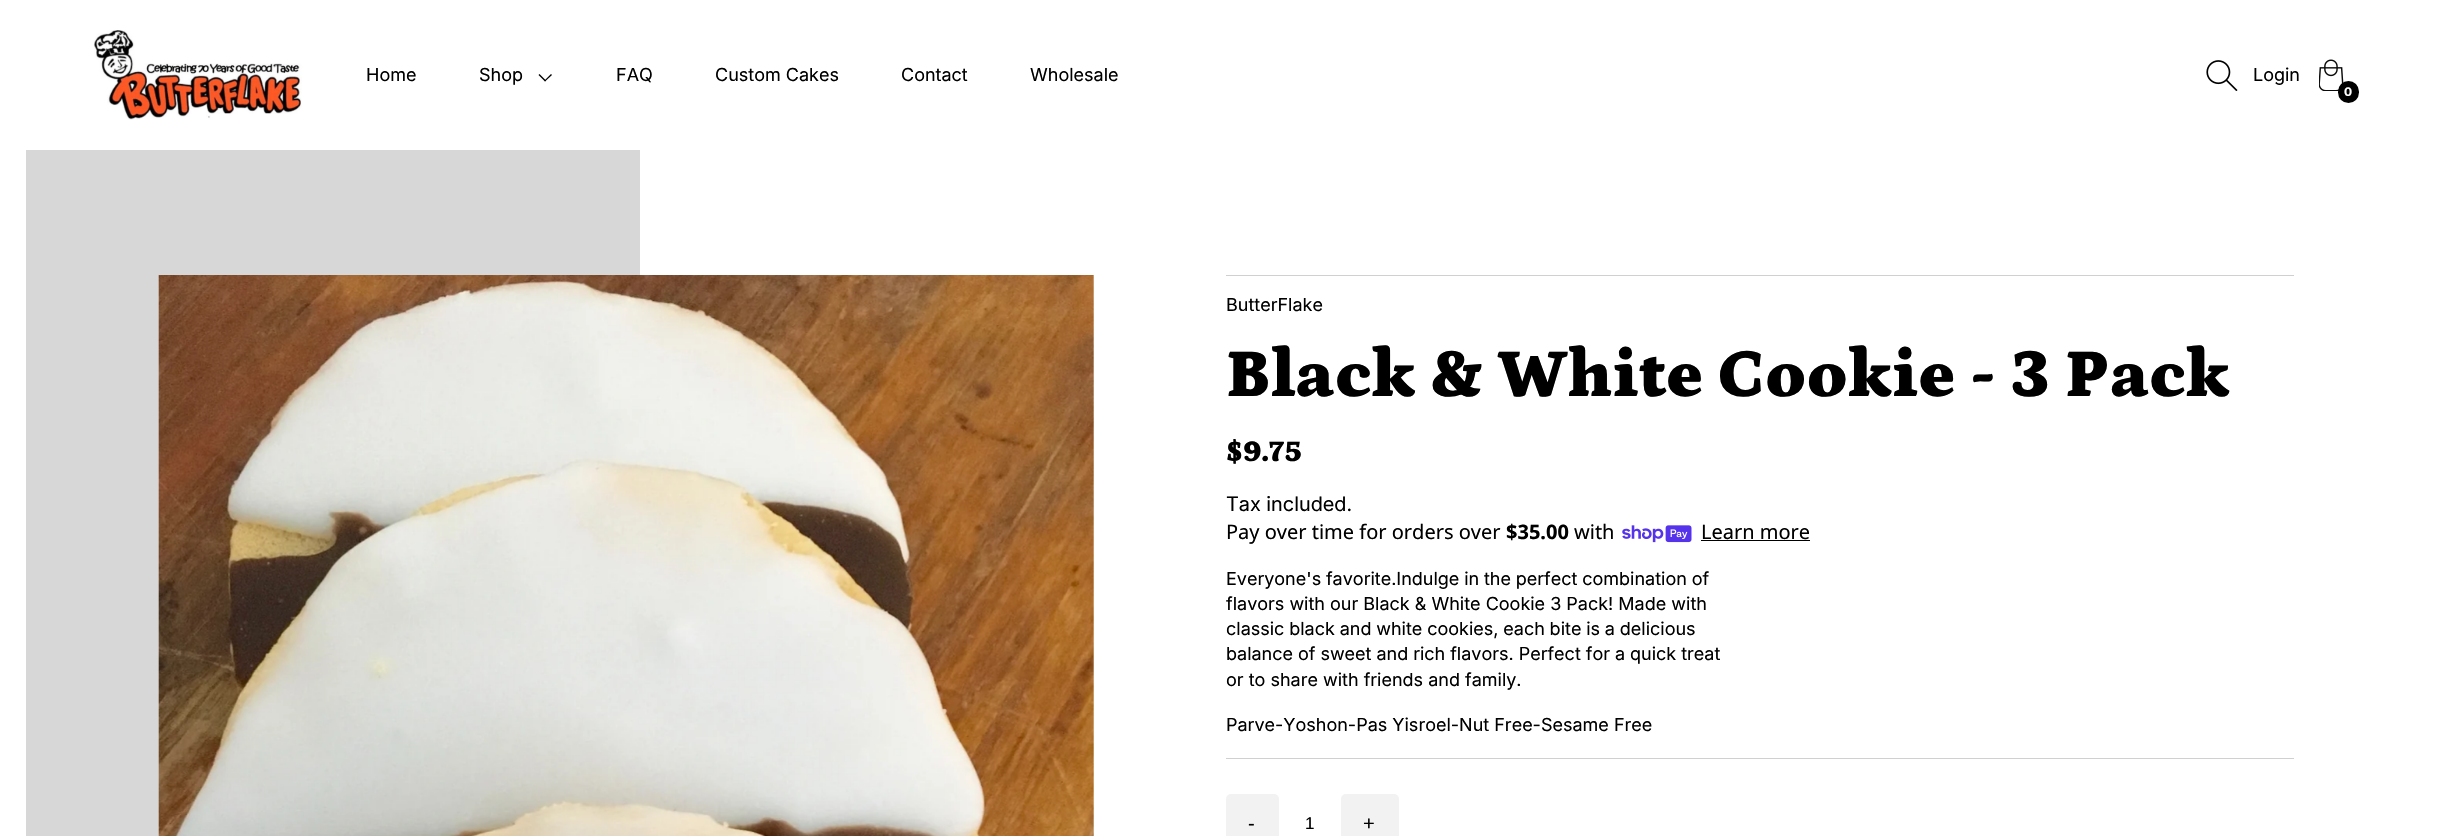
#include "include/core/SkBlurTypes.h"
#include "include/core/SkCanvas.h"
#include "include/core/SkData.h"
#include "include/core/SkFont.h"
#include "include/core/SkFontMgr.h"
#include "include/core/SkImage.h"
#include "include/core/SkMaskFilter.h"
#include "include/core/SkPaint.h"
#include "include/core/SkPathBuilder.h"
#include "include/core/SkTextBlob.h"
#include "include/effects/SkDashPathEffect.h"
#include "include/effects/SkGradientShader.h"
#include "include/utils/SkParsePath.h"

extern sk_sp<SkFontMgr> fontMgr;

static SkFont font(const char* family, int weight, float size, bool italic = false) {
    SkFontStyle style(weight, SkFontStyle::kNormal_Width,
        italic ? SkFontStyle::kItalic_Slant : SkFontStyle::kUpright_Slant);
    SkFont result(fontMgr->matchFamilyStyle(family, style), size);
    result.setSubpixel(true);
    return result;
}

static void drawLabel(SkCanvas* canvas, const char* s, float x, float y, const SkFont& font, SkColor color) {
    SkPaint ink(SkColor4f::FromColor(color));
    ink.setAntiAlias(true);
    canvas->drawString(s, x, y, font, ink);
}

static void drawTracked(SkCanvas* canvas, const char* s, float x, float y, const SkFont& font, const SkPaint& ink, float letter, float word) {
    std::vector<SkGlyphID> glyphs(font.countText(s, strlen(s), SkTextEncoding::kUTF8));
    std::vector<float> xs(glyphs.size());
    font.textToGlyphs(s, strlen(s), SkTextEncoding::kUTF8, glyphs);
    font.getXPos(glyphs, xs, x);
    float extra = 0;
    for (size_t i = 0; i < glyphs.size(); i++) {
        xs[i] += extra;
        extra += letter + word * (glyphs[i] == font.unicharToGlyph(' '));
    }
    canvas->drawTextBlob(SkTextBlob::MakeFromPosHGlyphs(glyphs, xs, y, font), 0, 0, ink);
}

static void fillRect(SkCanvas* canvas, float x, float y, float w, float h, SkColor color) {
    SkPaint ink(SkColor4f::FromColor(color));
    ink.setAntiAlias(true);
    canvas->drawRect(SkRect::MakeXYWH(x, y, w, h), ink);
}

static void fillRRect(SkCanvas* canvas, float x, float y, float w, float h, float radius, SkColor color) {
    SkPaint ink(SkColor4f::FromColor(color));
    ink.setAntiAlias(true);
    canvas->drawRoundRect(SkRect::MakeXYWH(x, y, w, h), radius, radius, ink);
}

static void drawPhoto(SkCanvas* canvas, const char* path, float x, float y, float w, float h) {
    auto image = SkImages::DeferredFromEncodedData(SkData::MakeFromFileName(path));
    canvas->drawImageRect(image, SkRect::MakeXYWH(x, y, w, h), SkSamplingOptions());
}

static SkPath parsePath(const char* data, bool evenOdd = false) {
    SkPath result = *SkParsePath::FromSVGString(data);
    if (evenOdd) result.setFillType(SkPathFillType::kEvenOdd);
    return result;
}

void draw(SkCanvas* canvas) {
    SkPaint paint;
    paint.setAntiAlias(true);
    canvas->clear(0xFFFFFFFF);
    drawPhoto(canvas, "assets/img1.png", 93, 30, 209, 90);
    SkFont font1 = font("Inter", 400, 18);
    drawLabel(canvas, "Home", 366, 81, font1, 0xFF000000);
    drawLabel(canvas, "Shop", 479, 81, font1, 0xFF000000);
    paint.setColor(0xFF000000);
    canvas->drawPath(parsePath("M552 75L545 81.5L544.5 80.5L551 74Z"), paint);
    canvas->drawPath(parsePath("M546 80.5L545 81.5L538.5 75L539.5 74Z"), paint);
    drawLabel(canvas, "FAQ", 616, 81, font1, 0xFF000000);
    drawLabel(canvas, "Custom Cakes", 715, 81, font1, 0xFF000000);
    drawLabel(canvas, "Contact", 901, 81, font1, 0xFF000000);
    drawLabel(canvas, "Wholesale", 1030, 81, font1, 0xFF000000);
    drawPhoto(canvas, "assets/img2.png", 2206, 60, 32, 31);
    drawLabel(canvas, "Login", 2253, 81, font1, 0xFF000000);
    drawPhoto(canvas, "assets/img3.png", 2319, 59, 25, 32);
    fillRRect(canvas, 2338, 81, 21, 22, 10.5f, 0xFF000000);
    SkFont font2 = font("Inter", 700, 12);
    drawLabel(canvas, "0", 2344, 96, font2, 0xFFFFFFFF);
    fillRect(canvas, 26, 150, 614, 686, 0xFFD7D7D7);
    drawPhoto(canvas, "assets/img4.png", 158, 275, 936, 561);
    fillRect(canvas, 1226, 275, 1068, 1, 0xFFD0D0D0);
    drawLabel(canvas, "ButterFlake", 1226, 311, font1, 0xFF000000);
    SkFont font3 = font("Petrona", 900, 69);
    drawLabel(canvas, "Black & White Cookie - 3 Pack", 1226, 396, font3, 0xFF000000);
    SkFont font4 = font("Petrona", 900, 30);
    drawLabel(canvas, "$9.75", 1226, 461, font4, 0xFF000000);
    SkFont font5 = font("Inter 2", 400, 20);
    drawLabel(canvas, "Tax included.", 1226, 511, font5, 0xFF000000);
    SkFont font6 = font("Noto Sans", 400, 20);
    drawLabel(canvas, "Pay over time for orders over", 1226, 539, font6, 0xFF000000);
    SkFont font7 = font("Noto Sans", 700, 20);
    drawLabel(canvas, "$35.00", 1506, 539, font7, 0xFF000000);
    drawLabel(canvas, "with", 1574, 539, font6, 0xFF000000);
    drawPhoto(canvas, "assets/img5.png", 1622, 525, 70, 18);
    drawLabel(canvas, "Learn more", 1701, 539, font6, 0xFF000000);
    fillRect(canvas, 1701, 540, 109, 1, 0xFF000000);
    drawTracked(canvas, "Everyone's favorite.Indulge in the perfect combination of", 1226, 585, font1, paint, 0, -0.25f);
    drawLabel(canvas, "flavors with our Black & White Cookie 3 Pack! Made with", 1226, 610, font1, 0xFF000000);
    drawTracked(canvas, "classic black and white cookies, each bite is a delicious", 1226, 635, font1, paint, 0, -0.25f);
    drawTracked(canvas, "balance of sweet and rich flavors. Perfect for a quick treat", 1226, 660, font1, paint, 0, -0.1f);
    drawLabel(canvas, "or to share with friends and family.", 1226, 686, font1, 0xFF000000);
    drawLabel(canvas, "Parve-Yoshon-Pas Yisroel-Nut Free-Sesame Free", 1226, 731, font1, 0xFF000000);
    fillRect(canvas, 1226, 758, 1068, 1, 0xFFD0D0D0);
    fillRRect(canvas, 1226, 794, 53, 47, 5, 0xFFF2F2F2);
    SkFont font8 = font("Liberation Sans", 400, 20);
    drawTracked(canvas, "-", 1248, 830, font8, paint, 1, 0);
    SkFont font9 = font("Liberation Sans", 400, 17);
    drawLabel(canvas, "1", 1305, 829, font9, 0xFF000000);
    fillRRect(canvas, 1341, 794, 58, 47, 5, 0xFFF2F2F2);
    drawTracked(canvas, "+", 1363, 830, font8, paint, 1, 0);
}
